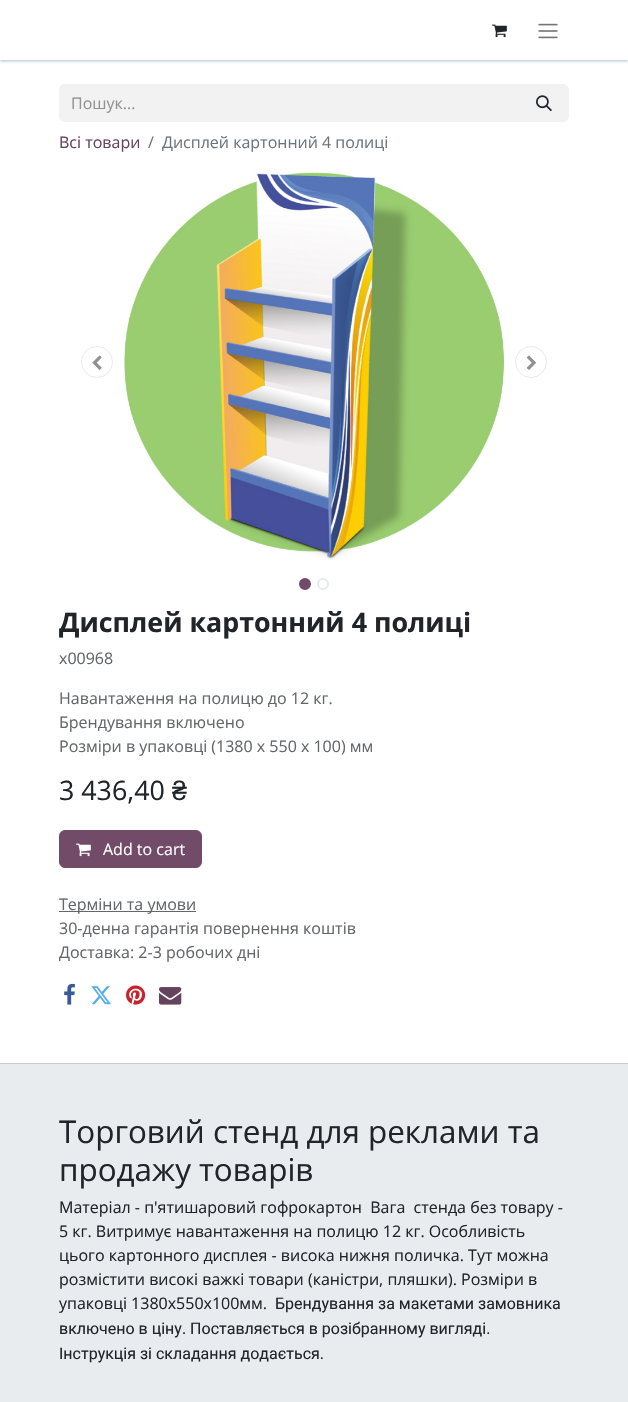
#include "include/core/SkBlurTypes.h"
#include "include/core/SkCanvas.h"
#include "include/core/SkData.h"
#include "include/core/SkFont.h"
#include "include/core/SkFontMgr.h"
#include "include/core/SkImage.h"
#include "include/core/SkMaskFilter.h"
#include "include/core/SkPaint.h"
#include "include/core/SkPathBuilder.h"
#include "include/core/SkTextBlob.h"
#include "include/effects/SkDashPathEffect.h"
#include "include/effects/SkGradientShader.h"
#include "include/utils/SkParsePath.h"

extern sk_sp<SkFontMgr> fontMgr;

static SkFont font(const char* family, int weight, float size, bool italic = false) {
    SkFontStyle style(weight, SkFontStyle::kNormal_Width,
        italic ? SkFontStyle::kItalic_Slant : SkFontStyle::kUpright_Slant);
    SkFont result(fontMgr->matchFamilyStyle(family, style), size);
    result.setSubpixel(true);
    return result;
}

static void drawLabel(SkCanvas* canvas, const char* s, float x, float y, const SkFont& font, SkColor color) {
    SkPaint ink(SkColor4f::FromColor(color));
    ink.setAntiAlias(true);
    canvas->drawString(s, x, y, font, ink);
}

static void fillRect(SkCanvas* canvas, float x, float y, float w, float h, SkColor color) {
    SkPaint ink(SkColor4f::FromColor(color));
    ink.setAntiAlias(true);
    canvas->drawRect(SkRect::MakeXYWH(x, y, w, h), ink);
}

static void drawPhoto(SkCanvas* canvas, const char* path, float x, float y, float w, float h) {
    auto image = SkImages::DeferredFromEncodedData(SkData::MakeFromFileName(path));
    canvas->drawImageRect(image, SkRect::MakeXYWH(x, y, w, h), SkSamplingOptions());
}

static SkPath parsePath(const char* data, bool evenOdd = false) {
    SkPath result = *SkParsePath::FromSVGString(data);
    if (evenOdd) result.setFillType(SkPathFillType::kEvenOdd);
    return result;
}

void draw(SkCanvas* canvas) {
    SkPaint paint;
    paint.setAntiAlias(true);
    canvas->clear(0xFFFFFFFF);
    canvas->save();
    canvas->clipRect(SkRect::MakeXYWH(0, 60, 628, 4));
    paint.setColor(0xFFA5C6CE);
    paint.setMaskFilter(SkMaskFilter::MakeBlur(kNormal_SkBlurStyle, 1.5f));
    canvas->drawRect(SkRect::MakeXYWH(0, 1, 628, 60), paint);
    paint.setMaskFilter(nullptr);
    canvas->restore();
    drawPhoto(canvas, "assets/img1.png", 492, 24, 15, 14);
    drawPhoto(canvas, "assets/img2.png", 538, 23, 20, 16);
    paint.setColor(0xFFF3F2F2);
    canvas->drawPath(parsePath("M65 84H520V122H65C61.5 122 59 119.5 59 116V90C59 86.5 61.5 84 65 84Z"), paint);
    SkFont font1 = font("Open Sans", 400, 16);
    drawLabel(canvas, "Пошук...", 71, 109, font1, 0xFF909294);
    canvas->drawPath(parsePath("M519.5 84.5H563C566 84.5 568.5 87 568.5 90V116C568.5 119 566 121.5 563 121.5H519.5Z"), paint);
    paint.setStroke(true);
    paint.setStrokeWidth(1);
    canvas->drawPath(parsePath("M519.5 84.5H563C566 84.5 568.5 87 568.5 90V116C568.5 119 566 121.5 563 121.5H519.5Z"), paint);
    drawPhoto(canvas, "assets/img3.png", 536, 95, 16, 17);
    drawLabel(canvas, "Всі товари", 59, 148, font1, 0xFF65435C);
    drawLabel(canvas, "/", 148, 148, font1, 0xFF6C757D);
    drawLabel(canvas, "Дисплей картонний 4 полиці", 162, 148, font1, 0xFF6C757D);
    paint.setColor(0xFFE7EAED);
    canvas->drawCircle(97, 362, 15.5f, paint);
    drawPhoto(canvas, "assets/img4.png", 92, 355, 10, 15);
    drawPhoto(canvas, "assets/img5.png", 124, 172, 380, 388);
    canvas->drawCircle(531, 362, 15.5f, paint);
    drawPhoto(canvas, "assets/img6.png", 526, 355, 10, 15);
    paint.setStroke(false);
    paint.setColor(0xFF714B67);
    canvas->drawCircle(305, 584, 5, paint);
    paint.setStroke(true);
    paint.setStrokeWidth(2);
    canvas->drawCircle(305, 584, 5, paint);
    paint.setColor(0xFFE7EAED);
    canvas->drawCircle(323, 584, 5, paint);
    SkFont font2 = font("Open Sans", 700, 26.8f);
    drawLabel(canvas, "Дисплей картонний 4 полиці", 59, 632, font2, 0xFF212529);
    drawLabel(canvas, "x00968", 59, 664, font1, 0xFF646669);
    drawLabel(canvas, "Навантаження на полицю до 12 кг.", 59, 704, font1, 0xFF646669);
    drawLabel(canvas, "Брендування включено", 59, 728, font1, 0xFF646669);
    drawLabel(canvas, "Розміри в упаковці (1380 х 550 х 100) мм", 59, 752, font1, 0xFF646669);
    SkFont font3 = font("Open Sans", 400, 26.8f);
    drawLabel(canvas, "3 436,40", 59, 800, font3, 0xFF212529);
    SkFont font4 = font("Liberation Sans", 400, 26.8f);
    drawLabel(canvas, "₴", 172, 800, font4, 0xFF212529);
    paint.setStroke(false);
    paint.setColor(0xFF714B67);
    canvas->drawRoundRect(SkRect::MakeXYWH(59.5f, 830.5f, 142, 37), 5.5f, 5.5f, paint);
    paint.setStroke(true);
    paint.setStrokeWidth(1);
    canvas->drawRoundRect(SkRect::MakeXYWH(59.5f, 830.5f, 142, 37), 5.5f, 5.5f, paint);
    drawPhoto(canvas, "assets/img7.png", 76, 843, 15, 14);
    drawLabel(canvas, "Add to cart", 103, 855, font1, 0xFFFFFFFF);
    fillRect(canvas, 59, 911, 137, 1, 0xFF646669);
    drawLabel(canvas, "Терміни та умови", 59, 910, font1, 0xFF646669);
    drawLabel(canvas, "30-денна гарантія повернення коштів", 59, 934, font1, 0xFF646669);
    drawLabel(canvas, "Доставка: 2-3 робочих дні", 59, 958, font1, 0xFF646669);
    drawPhoto(canvas, "assets/img8.png", 64, 983, 11, 22);
    drawPhoto(canvas, "assets/img9.png", 91, 986, 20, 19);
    drawPhoto(canvas, "assets/img10.png", 126, 985, 20, 20);
    drawPhoto(canvas, "assets/img11.png", 159, 987, 23, 18);
    fillRect(canvas, 0, 1064, 628, 338, 0xFFE9ECEF);
    fillRect(canvas, 0, 1063, 628, 1, 0xFFCBCED1);
    SkFont font5 = font("Open Sans", 400, 31.4f);
    drawLabel(canvas, "Торговий стенд для реклами та", 59, 1143, font5, 0xFF212529);
    drawLabel(canvas, "продажу товарів", 59, 1181, font5, 0xFF212529);
    drawLabel(canvas, "Матеріал - п'ятишаровий гофрокартон  Вага  стенда без товару -", 59, 1213, font1, 0xFF212529);
    drawLabel(canvas, "5 кг. Витримує навантаження на полицю 12 кг. Особливість", 59, 1237, font1, 0xFF212529);
    drawLabel(canvas, "цього картонного дисплея - висока нижня поличка. Тут можна", 59, 1261, font1, 0xFF212529);
    drawLabel(canvas, "розмістити високі важкі товари (каністри, пляшки). Розміри в", 59, 1285, font1, 0xFF212529);
    drawLabel(canvas, "упаковці 1380х550х100мм.", 59, 1309, font1, 0xFF212529);
    SkFont font6 = font("Roboto", 400, 16);
    drawLabel(canvas, "Брендування за макетами замовника", 275, 1309, font6, 0xFF212529);
    drawLabel(canvas, "включено в ціну. Поставляється в розібранному вигляді.", 59, 1334, font6, 0xFF212529);
    drawLabel(canvas, "Інструкція зі складання додається.", 59, 1359, font6, 0xFF212529);
}
